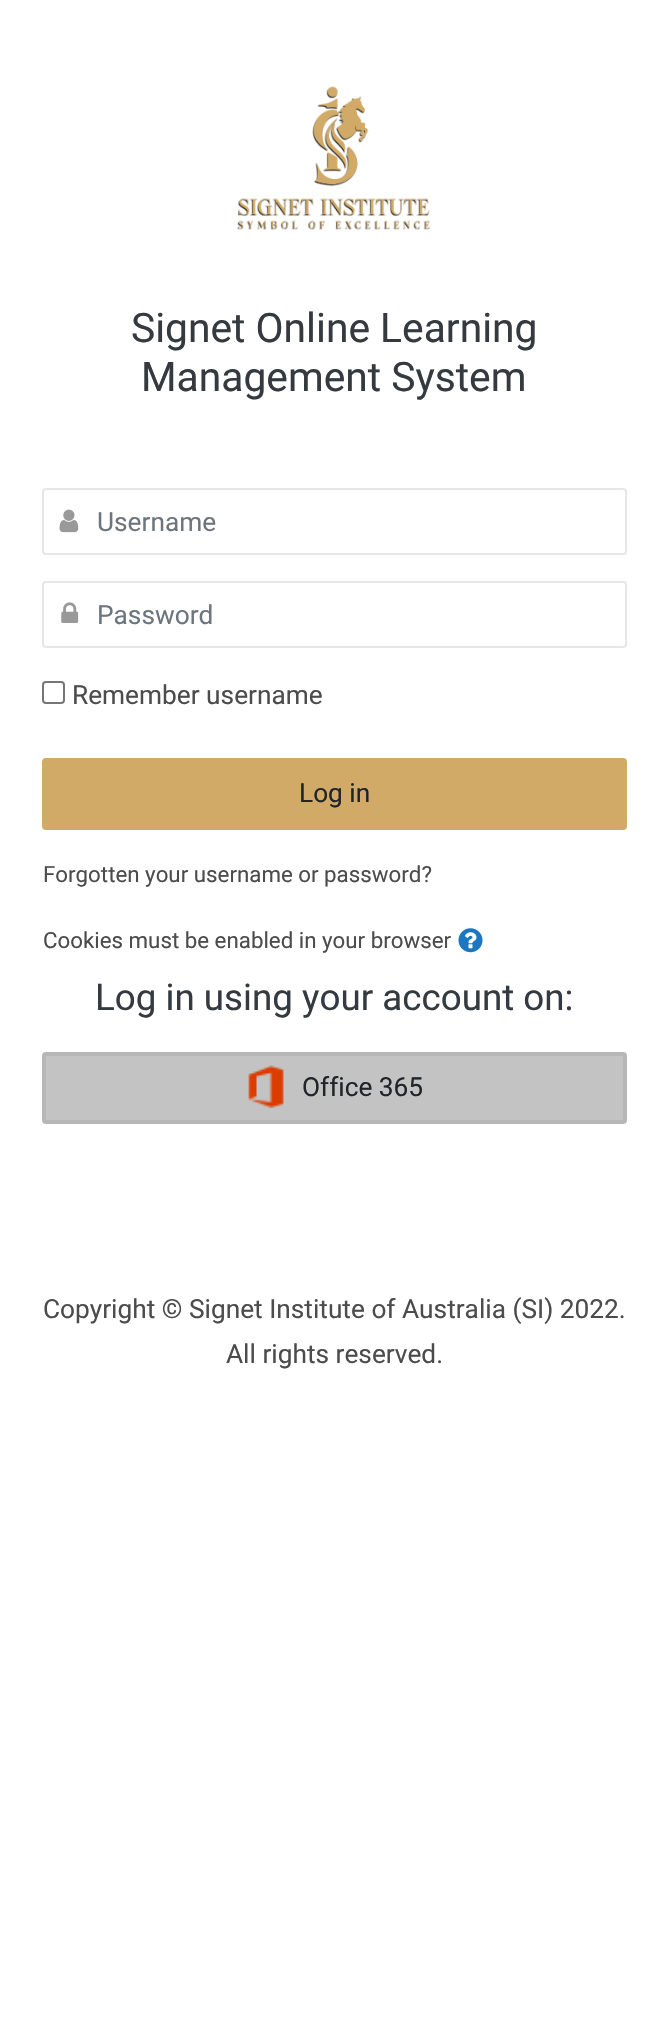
#include "include/core/SkBlurTypes.h"
#include "include/core/SkCanvas.h"
#include "include/core/SkData.h"
#include "include/core/SkFont.h"
#include "include/core/SkFontMgr.h"
#include "include/core/SkImage.h"
#include "include/core/SkMaskFilter.h"
#include "include/core/SkPaint.h"
#include "include/core/SkPathBuilder.h"
#include "include/core/SkTextBlob.h"
#include "include/effects/SkDashPathEffect.h"
#include "include/effects/SkGradientShader.h"
#include "include/utils/SkParsePath.h"

extern sk_sp<SkFontMgr> fontMgr;

static SkFont font(const char* family, int weight, float size, bool italic = false) {
    SkFontStyle style(weight, SkFontStyle::kNormal_Width,
        italic ? SkFontStyle::kItalic_Slant : SkFontStyle::kUpright_Slant);
    SkFont result(fontMgr->matchFamilyStyle(family, style), size);
    result.setSubpixel(true);
    return result;
}

static void drawLabel(SkCanvas* canvas, const char* s, float x, float y, const SkFont& font, SkColor color) {
    SkPaint ink(SkColor4f::FromColor(color));
    ink.setAntiAlias(true);
    canvas->drawString(s, x, y, font, ink);
}

static void drawPhoto(SkCanvas* canvas, const char* path, float x, float y, float w, float h) {
    auto image = SkImages::DeferredFromEncodedData(SkData::MakeFromFileName(path));
    canvas->drawImageRect(image, SkRect::MakeXYWH(x, y, w, h), SkSamplingOptions());
}

void draw(SkCanvas* canvas) {
    SkPaint paint;
    paint.setAntiAlias(true);
    canvas->clear(0xFFFFFFFF);
    drawPhoto(canvas, "assets/img1.png", 237, 86, 194, 144);
    SkFont font1 = font("Roboto", 400, 40.75f);
    drawLabel(canvas, "Signet Online Learning", 131, 342, font1, 0xFF343A40);
    drawLabel(canvas, "Management System", 141, 391, font1, 0xFF343A40);
    paint.setStroke(true);
    paint.setStrokeWidth(2);
    paint.setColor(0xFFE6E6E6);
    canvas->drawRoundRect(SkRect::MakeXYWH(43, 489, 583, 65), 3, 3, paint);
    drawPhoto(canvas, "assets/img2.png", 59, 509, 20, 24);
    SkFont font2 = font("Roboto", 400, 26.25f);
    drawLabel(canvas, "Username", 97, 531, font2, 0xFF6C757D);
    canvas->drawRoundRect(SkRect::MakeXYWH(43, 582, 583, 65), 3, 3, paint);
    drawPhoto(canvas, "assets/img3.png", 61, 602, 18, 21);
    drawLabel(canvas, "Password", 97, 624, font2, 0xFF6C757D);
    paint.setColor(0xFF767676);
    canvas->drawRoundRect(SkRect::MakeXYWH(43, 682, 21, 21), 3, 3, paint);
    drawLabel(canvas, "Remember username", 72, 704, font2, 0xFF4C4C4C);
    paint.setStroke(false);
    paint.setColor(0xFFD1AA67);
    canvas->drawRoundRect(SkRect::MakeXYWH(44, 760, 581, 68), 2, 2, paint);
    paint.setStroke(true);
    paint.setStrokeWidth(4);
    canvas->drawRoundRect(SkRect::MakeXYWH(44, 760, 581, 68), 2, 2, paint);
    drawLabel(canvas, "Log in", 299, 802, font2, 0xFF212529);
    SkFont font3 = font("Roboto", 400, 22.3f);
    drawLabel(canvas, "Forgotten your username or password?", 43, 882, font3, 0xFF4C4C4C);
    drawLabel(canvas, "Cookies must be enabled in your browser", 43, 948, font3, 0xFF4C4C4C);
    drawPhoto(canvas, "assets/img4.png", 458, 928, 25, 25);
    SkFont font4 = font("Roboto", 400, 36.75f);
    drawLabel(canvas, "Log in using your account on:", 95, 1010, font4, 0xFF343A40);
    paint.setStroke(false);
    paint.setColor(0xFFC3C3C3);
    canvas->drawRoundRect(SkRect::MakeXYWH(44, 1054, 581, 68), 2, 2, paint);
    paint.setStroke(true);
    paint.setColor(0xFFB6B6B6);
    canvas->drawRoundRect(SkRect::MakeXYWH(44, 1054, 581, 68), 2, 2, paint);
    drawPhoto(canvas, "assets/img5.png", 248, 1065, 36, 43);
    drawLabel(canvas, "Office 365", 302, 1096, font2, 0xFF212529);
    drawLabel(canvas, "Copyright © Signet Institute of Australia (SI) 2022.", 43, 1318, font2, 0xFF4C4C4C);
    drawLabel(canvas, "All rights reserved.", 226, 1363, font2, 0xFF4C4C4C);
}
